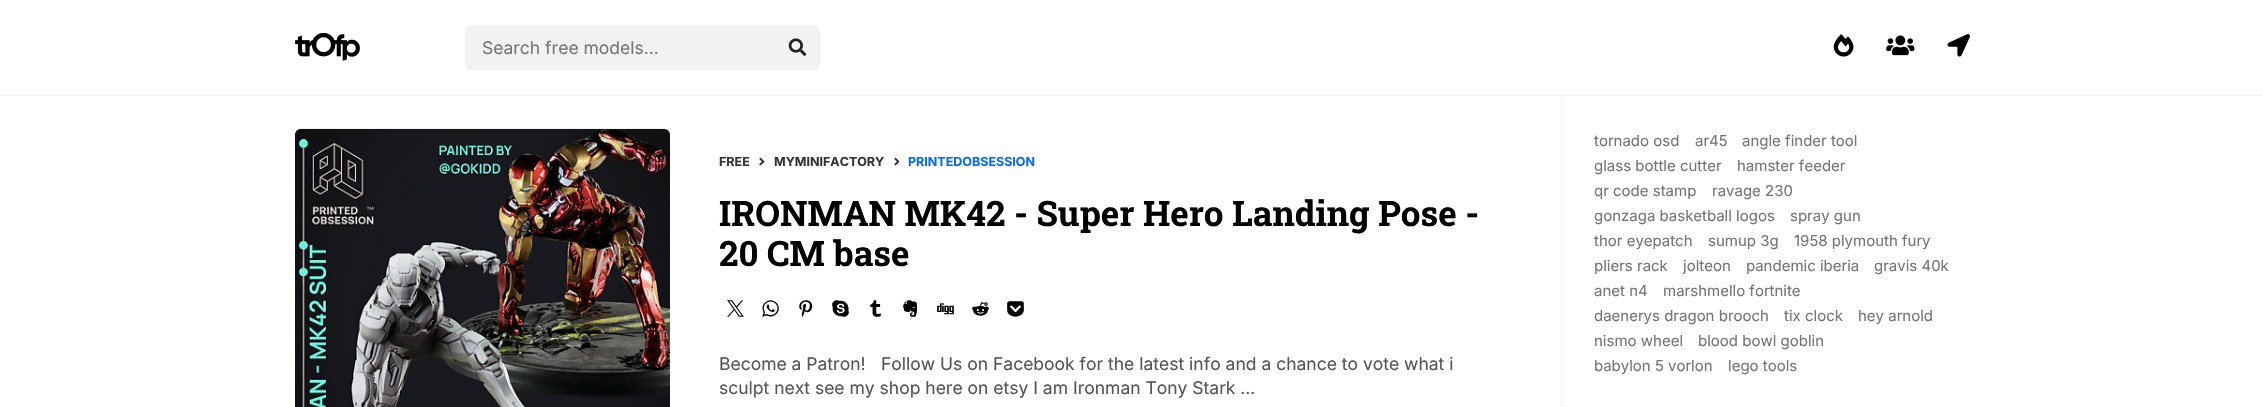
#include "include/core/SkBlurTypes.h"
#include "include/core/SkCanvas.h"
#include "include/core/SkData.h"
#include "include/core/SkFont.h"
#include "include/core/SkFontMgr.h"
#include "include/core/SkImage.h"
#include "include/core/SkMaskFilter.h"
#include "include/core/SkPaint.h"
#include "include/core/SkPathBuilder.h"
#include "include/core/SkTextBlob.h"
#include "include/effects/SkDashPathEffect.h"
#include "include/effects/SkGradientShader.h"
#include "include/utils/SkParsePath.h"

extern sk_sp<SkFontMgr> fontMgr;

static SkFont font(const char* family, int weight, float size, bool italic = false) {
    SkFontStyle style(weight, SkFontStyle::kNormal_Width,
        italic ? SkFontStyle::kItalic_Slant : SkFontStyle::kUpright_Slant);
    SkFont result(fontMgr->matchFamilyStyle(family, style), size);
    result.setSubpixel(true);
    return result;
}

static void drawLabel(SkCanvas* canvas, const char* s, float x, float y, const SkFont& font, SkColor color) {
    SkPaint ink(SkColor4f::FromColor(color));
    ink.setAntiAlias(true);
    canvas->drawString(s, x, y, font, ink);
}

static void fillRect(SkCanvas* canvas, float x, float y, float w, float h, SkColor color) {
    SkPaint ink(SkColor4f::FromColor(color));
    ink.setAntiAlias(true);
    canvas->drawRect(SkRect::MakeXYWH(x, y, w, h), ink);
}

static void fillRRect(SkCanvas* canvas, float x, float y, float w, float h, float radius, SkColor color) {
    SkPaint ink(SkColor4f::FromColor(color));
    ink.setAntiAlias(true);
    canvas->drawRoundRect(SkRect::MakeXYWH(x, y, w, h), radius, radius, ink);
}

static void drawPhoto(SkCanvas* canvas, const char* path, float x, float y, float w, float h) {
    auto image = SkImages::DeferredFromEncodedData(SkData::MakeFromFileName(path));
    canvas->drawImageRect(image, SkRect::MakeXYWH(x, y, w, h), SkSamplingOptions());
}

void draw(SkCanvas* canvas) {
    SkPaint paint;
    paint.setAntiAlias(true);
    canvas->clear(0xFFFFFFFF);
    drawPhoto(canvas, "assets/img1.png", 295, 33, 65, 28);
    fillRRect(canvas, 465, 25, 355, 45, 6, 0xFFF2F2F2);
    SkFont font1 = font("Inter", 400, 17.5f);
    drawLabel(canvas, "Search free models...", 482, 54, font1, 0xFF757575);
    drawPhoto(canvas, "assets/img2.png", 788, 38, 19, 18);
    drawPhoto(canvas, "assets/img3.png", 1833, 34, 21, 23);
    drawPhoto(canvas, "assets/img4.png", 1886, 35, 29, 21);
    drawPhoto(canvas, "assets/img5.png", 1947, 34, 23, 23);
    fillRect(canvas, 0, 95, 2263, 1, 0xFFF2F2F2);
    fillRect(canvas, 1561, 96, 1, 311, 0xFFF2F2F2);
    drawPhoto(canvas, "assets/img6.png", 295, 128, 375, 279);
    SkFont font2 = font("Inter", 700, 12.5f);
    drawLabel(canvas, "FREE", 719, 166, font2, 0xFF333333);
    drawPhoto(canvas, "assets/img7.png", 759, 157, 6, 9);
    drawLabel(canvas, "MYMINIFACTORY", 774, 166, font2, 0xFF333333);
    drawPhoto(canvas, "assets/img7.png", 894, 157, 6, 9);
    drawLabel(canvas, "PRINTEDOBSESSION", 908, 166, font2, 0xFF006AFF);
    SkFont font3 = font("Roboto Slab", 700, 35);
    drawLabel(canvas, "IRONMAN MK42 - Super Hero Landing Pose -", 719, 226, font3, 0xFF000000);
    drawLabel(canvas, "20 CM base", 719, 266, font3, 0xFF000000);
    drawPhoto(canvas, "assets/img8.png", 727, 300, 17, 17);
    drawPhoto(canvas, "assets/img9.png", 762, 300, 17, 17);
    drawPhoto(canvas, "assets/img10.png", 799, 300, 14, 17);
    drawPhoto(canvas, "assets/img11.png", 832, 300, 17, 17);
    drawPhoto(canvas, "assets/img12.png", 870, 300, 11, 17);
    drawPhoto(canvas, "assets/img13.png", 903, 300, 14, 17);
    drawPhoto(canvas, "assets/img14.png", 937, 303, 17, 12);
    drawPhoto(canvas, "assets/img15.png", 972, 302, 17, 14);
    drawPhoto(canvas, "assets/img16.png", 1007, 301, 17, 16);
    drawLabel(canvas, "Become a Patron!", 719, 370, font1, 0xFF555555);
    drawLabel(canvas, "Follow Us on Facebook for the latest info and a chance to vote what i", 881, 370, font1, 0xFF555555);
    drawLabel(canvas, "sculpt next see my shop here on etsy I am Ironman Tony Stark ...", 719, 394, font1, 0xFF555555);
    SkFont font4 = font("Inter", 400, 15);
    drawLabel(canvas, "tornado osd", 1594, 146, font4, 0xFF757575);
    drawLabel(canvas, "ar45", 1695, 146, font4, 0xFF757575);
    drawLabel(canvas, "angle finder tool", 1742, 146, font4, 0xFF757575);
    drawLabel(canvas, "glass bottle cutter", 1594, 171, font4, 0xFF757575);
    drawLabel(canvas, "hamster feeder", 1737, 171, font4, 0xFF757575);
    drawLabel(canvas, "qr code stamp", 1594, 196, font4, 0xFF757575);
    drawLabel(canvas, "ravage 230", 1712, 196, font4, 0xFF757575);
    drawLabel(canvas, "gonzaga basketball logos", 1594, 221, font4, 0xFF757575);
    drawLabel(canvas, "spray gun", 1790, 221, font4, 0xFF757575);
    drawLabel(canvas, "thor eyepatch", 1594, 246, font4, 0xFF757575);
    drawLabel(canvas, "sumup 3g", 1708, 246, font4, 0xFF757575);
    drawLabel(canvas, "1958 plymouth fury", 1794, 246, font4, 0xFF757575);
    drawLabel(canvas, "pliers rack", 1594, 271, font4, 0xFF757575);
    drawLabel(canvas, "jolteon", 1683, 271, font4, 0xFF757575);
    drawLabel(canvas, "pandemic iberia", 1746, 271, font4, 0xFF757575);
    drawLabel(canvas, "gravis 40k", 1874, 271, font4, 0xFF757575);
    drawLabel(canvas, "anet n4", 1594, 296, font4, 0xFF757575);
    drawLabel(canvas, "marshmello fortnite", 1663, 296, font4, 0xFF757575);
    drawLabel(canvas, "daenerys dragon brooch", 1594, 321, font4, 0xFF757575);
    drawLabel(canvas, "tix clock", 1784, 321, font4, 0xFF757575);
    drawLabel(canvas, "hey arnold", 1858, 321, font4, 0xFF757575);
    drawLabel(canvas, "nismo wheel", 1594, 346, font4, 0xFF757575);
    drawLabel(canvas, "blood bowl goblin", 1698, 346, font4, 0xFF757575);
    drawLabel(canvas, "babylon 5 vorlon", 1594, 371, font4, 0xFF757575);
    drawLabel(canvas, "lego tools", 1728, 371, font4, 0xFF757575);
}
